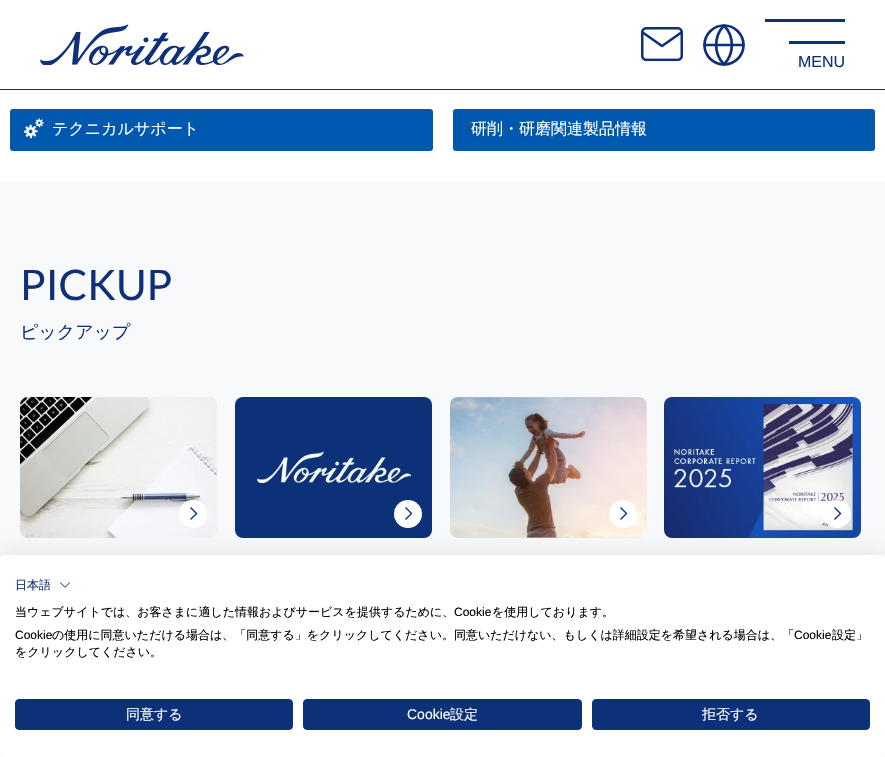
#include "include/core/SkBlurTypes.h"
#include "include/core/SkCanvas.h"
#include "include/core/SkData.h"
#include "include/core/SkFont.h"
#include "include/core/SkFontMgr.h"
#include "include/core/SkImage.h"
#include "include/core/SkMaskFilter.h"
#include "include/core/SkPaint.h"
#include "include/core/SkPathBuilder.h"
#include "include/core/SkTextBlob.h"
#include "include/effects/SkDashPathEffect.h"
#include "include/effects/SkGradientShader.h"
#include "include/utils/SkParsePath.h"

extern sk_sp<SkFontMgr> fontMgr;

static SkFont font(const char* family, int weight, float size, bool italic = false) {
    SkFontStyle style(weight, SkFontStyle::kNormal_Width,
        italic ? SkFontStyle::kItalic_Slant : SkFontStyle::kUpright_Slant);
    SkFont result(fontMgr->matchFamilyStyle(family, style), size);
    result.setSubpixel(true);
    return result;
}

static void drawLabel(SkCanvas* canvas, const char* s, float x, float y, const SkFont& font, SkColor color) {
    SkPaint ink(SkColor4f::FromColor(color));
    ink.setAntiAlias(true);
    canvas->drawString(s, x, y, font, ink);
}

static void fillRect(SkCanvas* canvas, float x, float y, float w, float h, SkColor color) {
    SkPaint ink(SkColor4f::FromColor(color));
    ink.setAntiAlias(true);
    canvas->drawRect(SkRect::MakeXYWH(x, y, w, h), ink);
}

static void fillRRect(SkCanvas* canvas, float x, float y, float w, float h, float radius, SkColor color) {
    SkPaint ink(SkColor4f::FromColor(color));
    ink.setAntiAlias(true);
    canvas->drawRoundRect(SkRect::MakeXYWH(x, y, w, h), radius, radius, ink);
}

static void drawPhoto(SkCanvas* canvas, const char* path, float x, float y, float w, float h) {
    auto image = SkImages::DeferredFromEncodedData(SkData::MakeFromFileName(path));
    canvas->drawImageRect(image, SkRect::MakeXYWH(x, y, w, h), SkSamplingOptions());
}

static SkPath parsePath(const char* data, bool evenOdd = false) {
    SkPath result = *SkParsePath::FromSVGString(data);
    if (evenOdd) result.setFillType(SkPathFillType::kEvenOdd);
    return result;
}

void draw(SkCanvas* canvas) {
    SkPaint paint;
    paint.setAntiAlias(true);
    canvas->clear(0xFFFFFFFF);
    fillRect(canvas, 0, 89, 885, 1, 0xFF0D3078);
    drawPhoto(canvas, "assets/img1.png", 40, 24, 204, 41);
    drawPhoto(canvas, "assets/img2.png", 641, 27, 42, 35);
    paint.setStroke(true);
    paint.setStrokeWidth(2.7f);
    paint.setColor(0xFF0D3078);
    canvas->drawCircle(724, 45, 19.5f, paint);
    paint.setStrokeCap(SkPaint::kRound_Cap);
    paint.setStrokeJoin(SkPaint::kRound_Join);
    canvas->drawPath(parsePath("M704.5 45H743.5M724 25.5C734.5 36.5 734.5 53.5 724 64.5C713.5 53.5 713.5 36.5 724 25.5Z"), paint);
    fillRect(canvas, 765, 19, 80, 3, 0xFF0D3078);
    fillRect(canvas, 789, 41, 56, 3, 0xFF0D3078);
    SkFont font1 = font("Liberation Sans", 400, 16);
    drawLabel(canvas, "MENU", 798, 67, font1, 0xFF0D3078);
    fillRRect(canvas, 10, 109, 423, 42, 3, 0xFF0059AF);
    drawPhoto(canvas, "assets/img3.png", 24, 118, 20, 21);
    SkFont font2 = font("WenQuanYi Zen Hei", 500, 16);
    drawLabel(canvas, "テクニカルサポート", 52, 134, font2, 0xFFFFFFFF);
    fillRRect(canvas, 453, 109, 422, 42, 3, 0xFF0059AF);
    drawLabel(canvas, "研削・研磨関連製品情報", 471, 134, font2, 0xFFFFFFFF);
    fillRect(canvas, 0, 181, 885, 378, 0xFFF8F9FB);
    SkFont font3 = font("Lato", 400, 42);
    drawLabel(canvas, "PICKUP", 20, 300, font3, 0xFF0D3078);
    SkFont font4 = font("WenQuanYi Zen Hei", 500, 18);
    drawLabel(canvas, "ピックアップ", 20, 338, font4, 0xFF0D3078);
    drawPhoto(canvas, "assets/img4.png", 20, 397, 197, 141);
    paint.setStroke(false);
    paint.setColor(0xFFFFFFFF);
    canvas->drawCircle(193, 514, 14, paint);
    paint.setStroke(true);
    paint.setStrokeWidth(1.4f);
    paint.setStrokeCap(SkPaint::kButt_Cap);
    paint.setStrokeJoin(SkPaint::kMiter_Join);
    paint.setColor(0xFF0D3078);
    canvas->drawPath(parsePath("M190.5 519.5L196.5 513.5L190.5 507.5"), paint);
    drawPhoto(canvas, "assets/img5.png", 235, 397, 197, 141);
    paint.setStroke(false);
    paint.setColor(0xFFFFFFFF);
    canvas->drawCircle(408, 514, 14, paint);
    paint.setStroke(true);
    paint.setColor(0xFF0D3078);
    canvas->drawPath(parsePath("M405.5 519.5L411.5 513.5L405.5 507.5"), paint);
    drawPhoto(canvas, "assets/img6.png", 450, 397, 197, 141);
    paint.setStroke(false);
    paint.setColor(0xFFFFFFFF);
    canvas->drawCircle(623, 514, 14, paint);
    paint.setStroke(true);
    paint.setColor(0xFF0D3078);
    canvas->drawPath(parsePath("M620.5 519.5L626.5 513.5L620.5 507.5"), paint);
    drawPhoto(canvas, "assets/img7.png", 664, 397, 197, 141);
    paint.setStroke(false);
    paint.setColor(0xFFFFFFFF);
    canvas->drawCircle(837, 514, 14, paint);
    paint.setStroke(true);
    paint.setColor(0xFF0D3078);
    canvas->drawPath(parsePath("M834.5 519.5L840.5 513.5L834.5 507.5"), paint);
    paint.setStroke(false);
    paint.setColor(0x1A000000);
    paint.setMaskFilter(SkMaskFilter::MakeBlur(kNormal_SkBlurStyle, 12));
    canvas->drawRoundRect(SkRect::MakeXYWH(0, 555, 885, 202), 4, 4, paint);
    paint.setMaskFilter(nullptr);
    fillRRect(canvas, 0, 555, 885, 202, 4, 0xFFFFFFFF);
    SkFont font5 = font("WenQuanYi Zen Hei", 500, 12);
    drawLabel(canvas, "日本語", 15, 589, font5, 0xFF0D3078);
    drawPhoto(canvas, "assets/img8.png", 60, 582, 10, 6);
    drawLabel(canvas, "当ウェブサイトでは、お客さまに適した情報およびサービスを提供するために、", 15, 616, font5, 0xFF000000);
    SkFont font6 = font("Liberation Sans", 400, 12);
    drawLabel(canvas, "Cookie", 454, 616, font6, 0xFF000000);
    drawLabel(canvas, "を使用しております。", 492, 616, font5, 0xFF000000);
    drawLabel(canvas, "Cookie", 15, 639, font6, 0xFF000000);
    drawLabel(canvas, "の使用に同意いただける場合は、「同意する」をクリックしてください。同意いただけない、もしくは詳細設定を希望される場合は、「", 52, 639, font5, 0xFF000000);
    drawLabel(canvas, "Cookie", 794, 639, font6, 0xFF000000);
    drawLabel(canvas, "設定」", 832, 639, font5, 0xFF000000);
    drawLabel(canvas, "をクリックしてください。", 15, 656, font5, 0xFF000000);
    paint.setColor(0xFF0C3178);
    canvas->drawRoundRect(SkRect::MakeXYWH(15.5f, 699.5f, 277, 30), 3.5f, 3.5f, paint);
    paint.setStroke(true);
    paint.setStrokeWidth(1);
    canvas->drawRoundRect(SkRect::MakeXYWH(15.5f, 699.5f, 277, 30), 3.5f, 3.5f, paint);
    SkFont font7 = font("WenQuanYi Zen Hei", 500, 14);
    drawLabel(canvas, "同意する", 126, 719, font7, 0xFFFFFFFF);
    paint.setStroke(false);
    canvas->drawRoundRect(SkRect::MakeXYWH(303.5f, 699.5f, 278, 30), 3.5f, 3.5f, paint);
    paint.setStroke(true);
    canvas->drawRoundRect(SkRect::MakeXYWH(303.5f, 699.5f, 278, 30), 3.5f, 3.5f, paint);
    SkFont font8 = font("Liberation Sans", 400, 14);
    drawLabel(canvas, "Cookie", 407, 719, font8, 0xFFFFFFFF);
    drawLabel(canvas, "設定", 450, 719, font7, 0xFFFFFFFF);
    paint.setStroke(false);
    canvas->drawRoundRect(SkRect::MakeXYWH(592.5f, 699.5f, 277, 30), 3.5f, 3.5f, paint);
    paint.setStroke(true);
    canvas->drawRoundRect(SkRect::MakeXYWH(592.5f, 699.5f, 277, 30), 3.5f, 3.5f, paint);
    drawLabel(canvas, "拒否する", 702, 719, font7, 0xFFFFFFFF);
}
